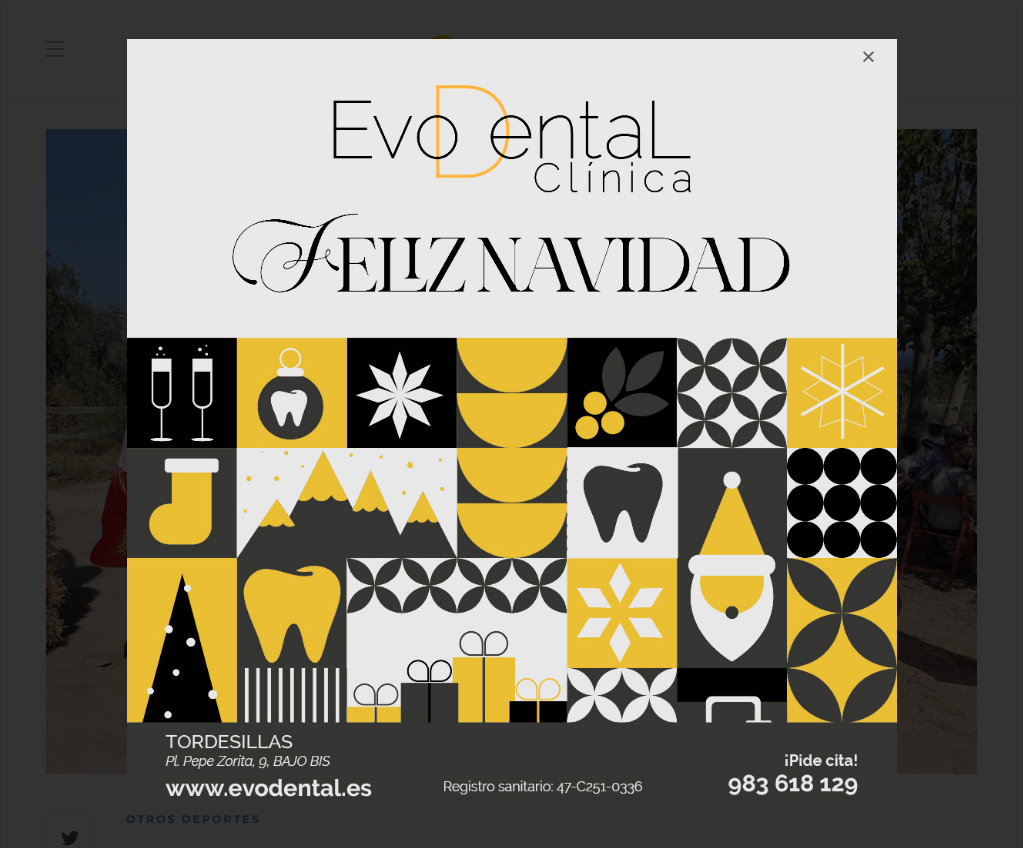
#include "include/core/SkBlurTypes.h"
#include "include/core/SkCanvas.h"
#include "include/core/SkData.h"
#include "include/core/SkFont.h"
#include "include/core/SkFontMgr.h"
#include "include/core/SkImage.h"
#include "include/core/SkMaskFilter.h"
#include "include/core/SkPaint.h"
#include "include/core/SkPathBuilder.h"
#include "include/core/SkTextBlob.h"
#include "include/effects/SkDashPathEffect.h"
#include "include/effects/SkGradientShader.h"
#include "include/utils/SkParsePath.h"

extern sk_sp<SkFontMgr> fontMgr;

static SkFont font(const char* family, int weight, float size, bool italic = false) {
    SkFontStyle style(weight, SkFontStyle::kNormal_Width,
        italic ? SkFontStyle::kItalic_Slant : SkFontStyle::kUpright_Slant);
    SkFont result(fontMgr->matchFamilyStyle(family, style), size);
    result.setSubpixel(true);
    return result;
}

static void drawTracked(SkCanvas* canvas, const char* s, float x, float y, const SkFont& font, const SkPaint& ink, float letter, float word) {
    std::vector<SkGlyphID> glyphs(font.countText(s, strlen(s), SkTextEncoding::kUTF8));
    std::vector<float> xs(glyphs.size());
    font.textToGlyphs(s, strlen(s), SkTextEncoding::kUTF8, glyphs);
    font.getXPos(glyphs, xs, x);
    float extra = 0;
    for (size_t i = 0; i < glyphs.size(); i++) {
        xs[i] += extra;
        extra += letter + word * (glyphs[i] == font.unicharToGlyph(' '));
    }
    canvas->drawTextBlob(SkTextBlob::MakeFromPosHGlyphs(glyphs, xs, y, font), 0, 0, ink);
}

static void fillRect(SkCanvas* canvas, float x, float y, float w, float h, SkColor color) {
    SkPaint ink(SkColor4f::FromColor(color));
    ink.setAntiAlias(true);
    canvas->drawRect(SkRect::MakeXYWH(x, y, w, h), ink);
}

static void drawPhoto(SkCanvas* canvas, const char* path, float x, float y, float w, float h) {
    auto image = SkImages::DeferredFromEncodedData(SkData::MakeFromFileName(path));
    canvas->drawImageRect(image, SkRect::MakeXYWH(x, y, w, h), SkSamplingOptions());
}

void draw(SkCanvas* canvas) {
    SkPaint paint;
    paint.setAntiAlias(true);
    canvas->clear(0xFF333333);
    fillRect(canvas, 1, 99, 1021, 1, 0xFF2F2F2F);
    drawPhoto(canvas, "assets/img4.png", 46, 129, 931, 645);
    drawPhoto(canvas, "assets/img1.png", 127, 39, 770, 758);
    drawPhoto(canvas, "assets/img2.png", 863, 51, 11, 11);
    fillRect(canvas, 1022, 4, 1, 844, 0xFF2F2F2F);
    fillRect(canvas, 0, 4, 1, 844, 0xFF2F2F2F);
    drawPhoto(canvas, "assets/img3.png", 431, 35, 156, 4);
    fillRect(canvas, 46, 41, 18, 2, 0xFF242424);
    fillRect(canvas, 46, 48, 18, 2, 0xFF242424);
    fillRect(canvas, 46, 55, 18, 2, 0xFF242424);
    paint.setStroke(true);
    paint.setStrokeWidth(1);
    paint.setColor(0xFF303030);
    canvas->drawRoundRect(SkRect::MakeXYWH(46.5f, 814.5f, 44, 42), 7.5f, 7.5f, paint);
    drawPhoto(canvas, "assets/img5.png", 61, 830, 18, 16);
    SkFont font1 = font("Montserrat", 100, 11);
    paint.setStroke(false);
    paint.setColor(0xFF101F26);
    drawTracked(canvas, "OTROS DEPORTES", 126, 823, font1, paint, 2, 0);
}
